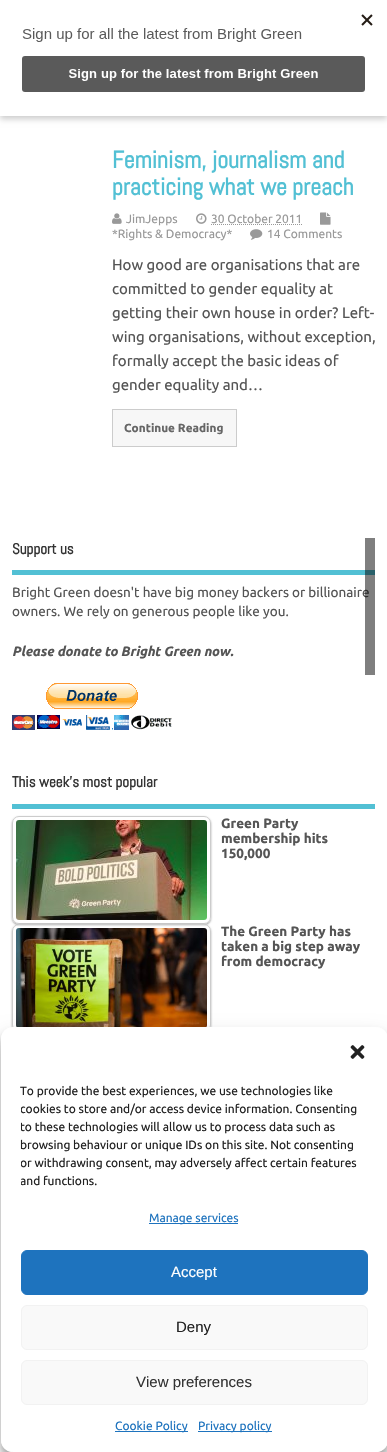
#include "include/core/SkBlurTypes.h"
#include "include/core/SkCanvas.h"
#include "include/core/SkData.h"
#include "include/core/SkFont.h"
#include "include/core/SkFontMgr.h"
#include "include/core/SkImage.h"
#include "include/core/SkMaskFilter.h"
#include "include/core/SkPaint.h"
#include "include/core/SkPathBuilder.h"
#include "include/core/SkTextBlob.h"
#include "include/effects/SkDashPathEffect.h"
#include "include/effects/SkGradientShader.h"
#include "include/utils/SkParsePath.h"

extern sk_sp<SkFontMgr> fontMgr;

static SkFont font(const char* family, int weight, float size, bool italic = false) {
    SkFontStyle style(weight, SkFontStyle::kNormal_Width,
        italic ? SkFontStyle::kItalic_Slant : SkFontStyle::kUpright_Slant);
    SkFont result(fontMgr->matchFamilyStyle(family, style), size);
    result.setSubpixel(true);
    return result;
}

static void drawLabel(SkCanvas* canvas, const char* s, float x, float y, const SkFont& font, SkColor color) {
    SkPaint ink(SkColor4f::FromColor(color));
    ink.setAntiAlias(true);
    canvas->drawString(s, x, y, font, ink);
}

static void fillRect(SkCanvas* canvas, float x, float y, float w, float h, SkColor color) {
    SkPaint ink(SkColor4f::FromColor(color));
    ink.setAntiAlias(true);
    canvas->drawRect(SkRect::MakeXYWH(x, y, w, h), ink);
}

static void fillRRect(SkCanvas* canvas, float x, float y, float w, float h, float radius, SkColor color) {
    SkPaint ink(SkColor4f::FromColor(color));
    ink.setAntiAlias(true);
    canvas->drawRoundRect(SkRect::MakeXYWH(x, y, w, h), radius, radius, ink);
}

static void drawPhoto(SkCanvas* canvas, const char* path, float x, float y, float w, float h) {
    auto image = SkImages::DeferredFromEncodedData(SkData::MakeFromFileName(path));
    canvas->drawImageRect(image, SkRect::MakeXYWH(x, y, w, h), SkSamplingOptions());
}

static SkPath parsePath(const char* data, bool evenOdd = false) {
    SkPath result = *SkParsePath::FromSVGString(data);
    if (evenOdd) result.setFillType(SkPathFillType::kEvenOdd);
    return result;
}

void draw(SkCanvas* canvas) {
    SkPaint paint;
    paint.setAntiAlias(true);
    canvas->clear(0xFFFFFFFF);
    paint.setColor(0x33000000);
    paint.setMaskFilter(SkMaskFilter::MakeBlur(kNormal_SkBlurStyle, 3));
    canvas->drawRect(SkRect::MakeXYWH(0, 3, 387, 116), paint);
    paint.setMaskFilter(nullptr);
    fillRect(canvas, 0, 0, 387, 116, 0xFFFFFFFF);
    drawPhoto(canvas, "assets/img1.png", 22, 14, 351, 78);
    SkFont font1 = font("Abel", 700, 24);
    drawLabel(canvas, "Feminism, journalism and", 112, 168, font1, 0xFF52C0D4);
    drawLabel(canvas, "practicing what we preach", 112, 195, font1, 0xFF52C0D4);
    drawPhoto(canvas, "assets/img2.png", 112, 213, 10, 11);
    SkFont font2 = font("Ubuntu", 400, 12);
    drawLabel(canvas, "JimJepps", 126, 223, font2, 0xFF999999);
    drawPhoto(canvas, "assets/img3.png", 196, 213, 11, 11);
    drawLabel(canvas, "30 October 2011", 211, 223, font2, 0xFF999999);
    paint.setStroke(true);
    paint.setStrokeWidth(1);
    paint.setColor(0xFF999999);
    paint.setPathEffect(SkDashPathEffect::Make({{1, 1}}, 0));
    canvas->drawPath(parsePath("M211 224.5H302.5"), paint);
    paint.setPathEffect(nullptr);
    drawPhoto(canvas, "assets/img4.png", 320, 212, 11, 13);
    drawLabel(canvas, "*Rights & Democracy*", 112, 238, font2, 0xFF999999);
    drawPhoto(canvas, "assets/img5.png", 250, 229, 13, 11);
    drawLabel(canvas, "14 Comments", 267, 238, font2, 0xFF999999);
    SkFont font3 = font("Ubuntu", 400, 15);
    drawLabel(canvas, "How good are organisations that are", 112, 270, font3, 0xFF555555);
    drawLabel(canvas, "committed to gender equality at", 112, 294, font3, 0xFF555555);
    drawLabel(canvas, "getting their own house in order? Left-", 112, 318, font3, 0xFF555555);
    drawLabel(canvas, "wing organisations, without exception,", 112, 342, font3, 0xFF555555);
    drawLabel(canvas, "formally accept the basic ideas of", 112, 366, font3, 0xFF555555);
    drawLabel(canvas, "gender equality and…", 112, 390, font3, 0xFF555555);
    paint.setStroke(false);
    paint.setColor(0xFFF7F7F7);
    canvas->drawRect(SkRect::MakeXYWH(112.5f, 409.5f, 124, 37), paint);
    paint.setStroke(true);
    paint.setColor(0xFFCCCCCC);
    canvas->drawRect(SkRect::MakeXYWH(112.5f, 409.5f, 124, 37), paint);
    SkFont font4 = font("Ubuntu", 700, 11.75f);
    drawLabel(canvas, "Continue Reading", 124, 432, font4, 0xFF666666);
    fillRect(canvas, 12, 570, 363, 5, 0xFF52C0D4);
    SkFont font5 = font("Abel", 700, 15);
    drawLabel(canvas, "Support us", 12, 554, font5, 0xFF333333);
    SkFont font6 = font("Ubuntu", 400, 13.5f);
    drawLabel(canvas, "Bright Green doesn't have big money backers or billionaire", 12, 597, font6, 0xFF555555);
    drawLabel(canvas, "owners. We rely on generous people like you.", 12, 616, font6, 0xFF555555);
    SkFont font7 = font("Ubuntu", 700, 13.5f, true);
    drawLabel(canvas, "Please donate to Bright Green now.", 12, 656, font7, 0xFF555555);
    drawPhoto(canvas, "assets/img6.png", 12, 683, 160, 47);
    fillRect(canvas, 365, 538, 10, 137, 0x80000000);
    fillRect(canvas, 12, 804, 363, 5, 0xFF52C0D4);
    drawLabel(canvas, "This week’s most popular", 12, 787, font5, 0xFF333333);
    canvas->save();
    canvas->clipPath(parsePath("M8 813H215V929H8ZM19 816H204C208 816 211 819 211 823V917C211 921 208 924 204 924H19C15 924 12 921 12 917V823C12 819 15 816 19 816Z", true), true);
    paint.setStroke(false);
    paint.setColor(0x66000000);
    paint.setMaskFilter(SkMaskFilter::MakeBlur(kNormal_SkBlurStyle, 1));
    canvas->drawRoundRect(SkRect::MakeXYWH(12, 817, 199, 108), 7, 7, paint);
    paint.setMaskFilter(nullptr);
    canvas->restore();
    paint.setStroke(true);
    paint.setColor(0xFFCCCCCC);
    canvas->drawRoundRect(SkRect::MakeXYWH(12.5f, 816.5f, 198, 107), 6.5f, 6.5f, paint);
    drawPhoto(canvas, "assets/img7.png", 16, 820, 191, 100);
    SkFont font8 = font("Ubuntu", 700, 13.5f);
    drawLabel(canvas, "Green Party", 221, 828, font8, 0xFF555555);
    drawLabel(canvas, "membership hits", 221, 843, font8, 0xFF555555);
    drawLabel(canvas, "150,000", 221, 858, font8, 0xFF555555);
    canvas->save();
    canvas->clipPath(parsePath("M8 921H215V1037H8ZM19 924H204C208 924 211 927 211 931V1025C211 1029 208 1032 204 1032H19C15 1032 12 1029 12 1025V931C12 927 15 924 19 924Z", true), true);
    paint.setStroke(false);
    paint.setColor(0x66000000);
    paint.setMaskFilter(SkMaskFilter::MakeBlur(kNormal_SkBlurStyle, 1));
    canvas->drawRoundRect(SkRect::MakeXYWH(12, 925, 199, 108), 7, 7, paint);
    paint.setMaskFilter(nullptr);
    canvas->restore();
    paint.setStroke(true);
    paint.setColor(0xFFCCCCCC);
    canvas->drawRoundRect(SkRect::MakeXYWH(12.5f, 924.5f, 198, 107), 6.5f, 6.5f, paint);
    drawPhoto(canvas, "assets/img8.png", 16, 928, 191, 99);
    drawLabel(canvas, "The Green Party has", 221, 936, font8, 0xFF555555);
    drawLabel(canvas, "taken a big step away", 221, 951, font8, 0xFF555555);
    drawLabel(canvas, "from democracy", 221, 966, font8, 0xFF555555);
    canvas->drawRect(SkRect::MakeXYWH(12.5f, 1356.5f, 198, 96), paint);
    canvas->save();
    canvas->clipPath(parsePath("M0 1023H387V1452H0ZM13 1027H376C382.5 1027 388 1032.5 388 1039V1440C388 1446.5 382.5 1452 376 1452H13C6.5 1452 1 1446.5 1 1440V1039C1 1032.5 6.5 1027 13 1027Z", true), true);
    paint.setStroke(false);
    paint.setColor(0x3B000000);
    paint.setMaskFilter(SkMaskFilter::MakeBlur(kNormal_SkBlurStyle, 3));
    canvas->drawRoundRect(SkRect::MakeXYWH(1, 1033, 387, 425), 12, 12, paint);
    paint.setMaskFilter(nullptr);
    canvas->restore();
    canvas->save();
    canvas->clipPath(parsePath("M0 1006H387V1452H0ZM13 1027H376C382.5 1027 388 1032.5 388 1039V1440C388 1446.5 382.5 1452 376 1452H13C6.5 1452 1 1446.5 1 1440V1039C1 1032.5 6.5 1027 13 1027Z", true), true);
    paint.setColor(0x30000000);
    paint.setMaskFilter(SkMaskFilter::MakeBlur(kNormal_SkBlurStyle, 10));
    canvas->drawRoundRect(SkRect::MakeXYWH(1, 1037, 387, 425), 12, 12, paint);
    paint.setMaskFilter(nullptr);
    canvas->restore();
    fillRRect(canvas, 1, 1027, 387, 425, 12, 0xFFFFFFFF);
    drawPhoto(canvas, "assets/img9.png", 350, 1045, 15, 14);
    drawLabel(canvas, "To provide the best experiences, we use technologies like", 20, 1095, font2, 0xFF222222);
    canvas->save();
    canvas->clipRect(SkRect::MakeXYWH(21, 1082, 347, 113));
    drawLabel(canvas, "cookies to store and/or access device information. Consenting", 20, 1113, font2, 0xFF222222);
    drawLabel(canvas, "to these technologies will allow us to process data such as", 20, 1131, font2, 0xFF222222);
    canvas->restore();
    drawLabel(canvas, "browsing behaviour or unique IDs on this site. Not consenting", 20, 1149, font2, 0xFF222222);
    canvas->save();
    canvas->clipRect(SkRect::MakeXYWH(21, 1082, 347, 113));
    drawLabel(canvas, "or withdrawing consent, may adversely affect certain features", 20, 1167, font2, 0xFF222222);
    drawLabel(canvas, "and functions.", 20, 1185, font2, 0xFF222222);
    canvas->restore();
    fillRect(canvas, 149, 1223, 89, 1, 0xFF1E73BE);
    drawLabel(canvas, "Manage services", 149, 1222, font2, 0xFF1E73BE);
    paint.setColor(0xFF1E73BE);
    canvas->drawRoundRect(SkRect::MakeXYWH(21.5f, 1250.5f, 346, 44), 5.5f, 5.5f, paint);
    paint.setStroke(true);
    canvas->drawRoundRect(SkRect::MakeXYWH(21.5f, 1250.5f, 346, 44), 5.5f, 5.5f, paint);
    SkFont font9 = font("Liberation Sans", 400, 15);
    drawLabel(canvas, "Accept", 171, 1277, font9, 0xFFFFFFFF);
    paint.setStroke(false);
    paint.setColor(0xFFF9F9F9);
    canvas->drawRoundRect(SkRect::MakeXYWH(21.5f, 1305.5f, 346, 44), 5.5f, 5.5f, paint);
    paint.setStroke(true);
    paint.setColor(0xFFF2F2F2);
    canvas->drawRoundRect(SkRect::MakeXYWH(21.5f, 1305.5f, 346, 44), 5.5f, 5.5f, paint);
    drawLabel(canvas, "Deny", 176, 1332, font9, 0xFF222222);
    paint.setStroke(false);
    paint.setColor(0xFFF9F9F9);
    canvas->drawRoundRect(SkRect::MakeXYWH(21.5f, 1360.5f, 346, 44), 5.5f, 5.5f, paint);
    paint.setStroke(true);
    paint.setColor(0xFFF2F2F2);
    canvas->drawRoundRect(SkRect::MakeXYWH(21.5f, 1360.5f, 346, 44), 5.5f, 5.5f, paint);
    drawLabel(canvas, "View preferences", 136, 1387, font9, 0xFF333333);
    fillRect(canvas, 115, 1431, 73, 1, 0xFF1E73BE);
    drawLabel(canvas, "Cookie Policy", 115, 1430, font2, 0xFF1E73BE);
    fillRect(canvas, 198, 1431, 74, 1, 0xFF1E73BE);
    drawLabel(canvas, "Privacy policy", 198, 1430, font2, 0xFF1E73BE);
}
